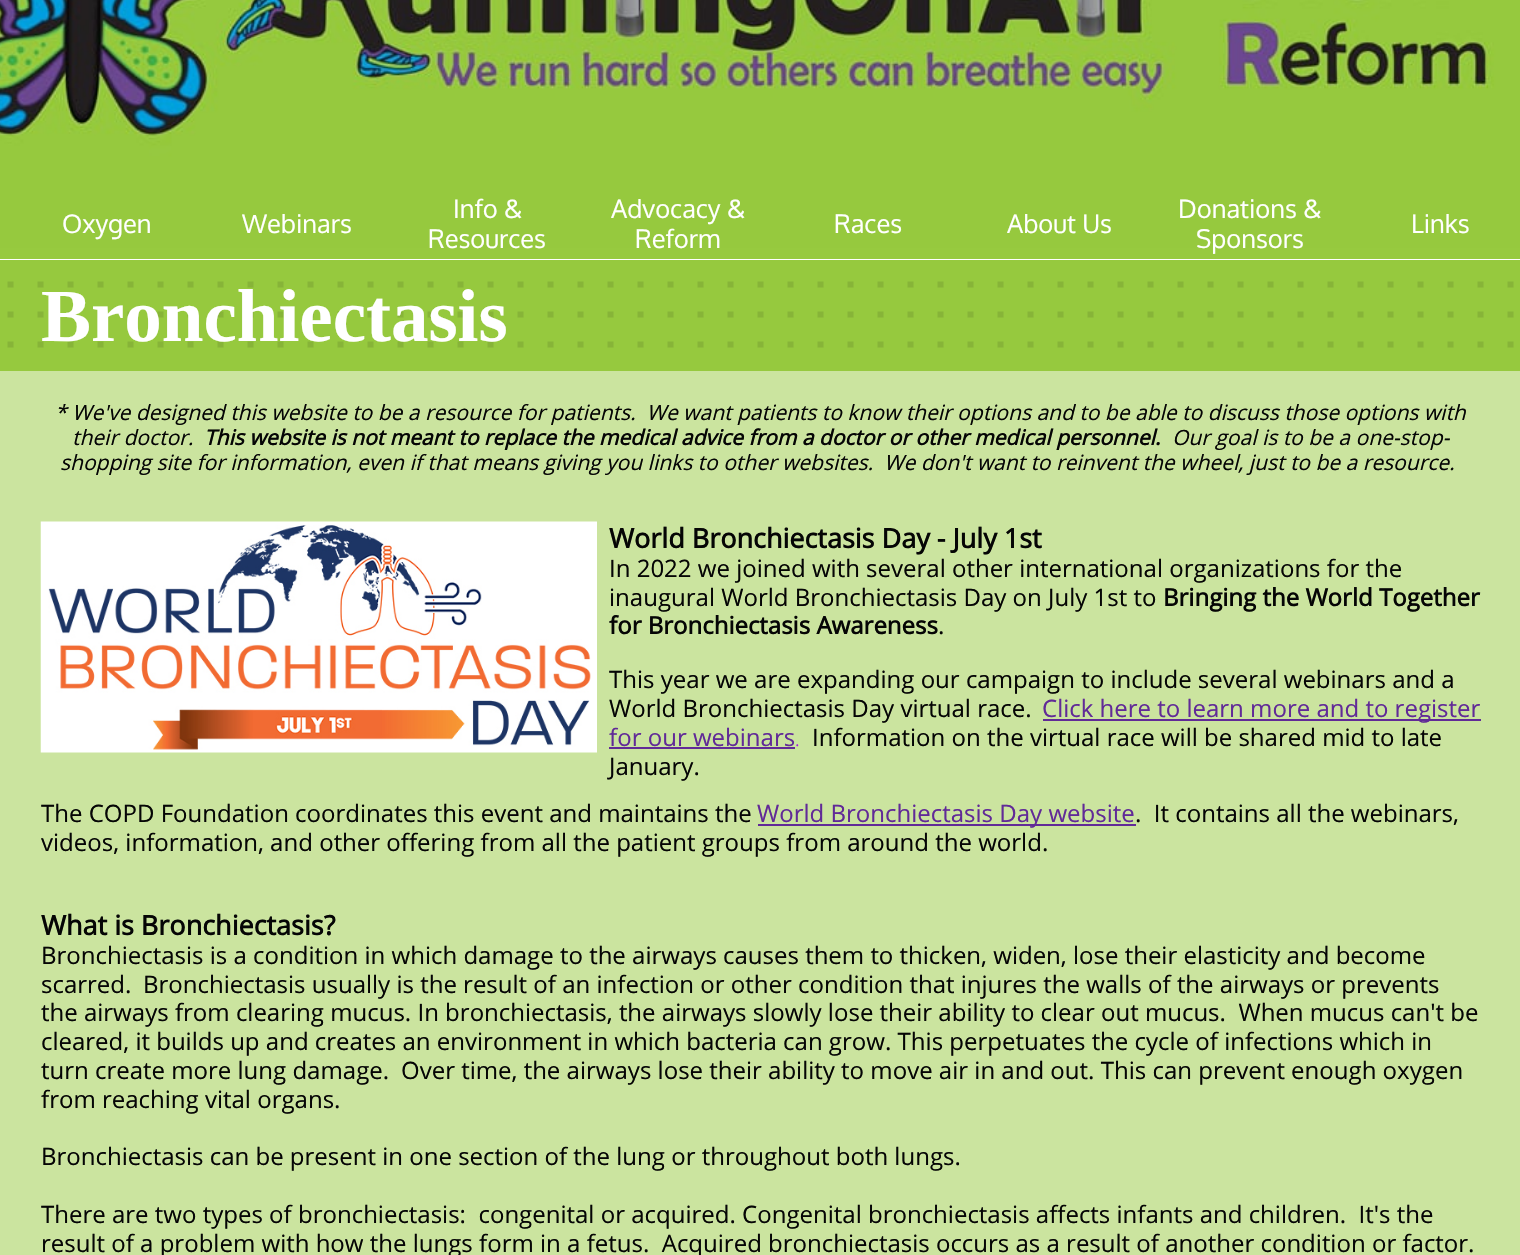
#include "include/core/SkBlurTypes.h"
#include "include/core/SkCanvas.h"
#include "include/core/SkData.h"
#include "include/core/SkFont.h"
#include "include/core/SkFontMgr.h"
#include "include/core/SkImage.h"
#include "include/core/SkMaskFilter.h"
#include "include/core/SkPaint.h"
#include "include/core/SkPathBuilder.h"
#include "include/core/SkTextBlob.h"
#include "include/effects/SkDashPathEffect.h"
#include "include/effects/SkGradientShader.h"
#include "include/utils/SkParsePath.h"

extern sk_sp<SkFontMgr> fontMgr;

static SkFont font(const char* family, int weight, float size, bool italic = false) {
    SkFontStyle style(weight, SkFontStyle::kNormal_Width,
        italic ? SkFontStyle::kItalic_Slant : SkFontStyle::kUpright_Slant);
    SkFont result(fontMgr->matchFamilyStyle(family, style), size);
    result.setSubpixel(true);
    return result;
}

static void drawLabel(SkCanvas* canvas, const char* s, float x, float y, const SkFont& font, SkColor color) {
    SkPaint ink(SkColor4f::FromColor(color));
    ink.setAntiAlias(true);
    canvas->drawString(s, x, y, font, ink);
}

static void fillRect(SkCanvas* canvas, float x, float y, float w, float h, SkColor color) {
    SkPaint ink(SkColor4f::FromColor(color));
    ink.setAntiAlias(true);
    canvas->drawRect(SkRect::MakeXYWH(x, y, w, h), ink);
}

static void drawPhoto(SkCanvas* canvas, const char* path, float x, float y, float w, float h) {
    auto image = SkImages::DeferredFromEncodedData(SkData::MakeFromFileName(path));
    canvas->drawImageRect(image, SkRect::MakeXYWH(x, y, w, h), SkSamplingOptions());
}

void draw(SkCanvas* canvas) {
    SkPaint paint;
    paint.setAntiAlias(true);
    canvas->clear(0xFFFFFFFF);
    drawPhoto(canvas, "assets/img1.png", 0, 0, 1520, 259);
    SkFont font1 = font("Oxygen", 400, 25.5f);
    drawLabel(canvas, "Oxygen", 62, 233, font1, 0xFFFFFFFF);
    drawLabel(canvas, "Webinars", 242, 233, font1, 0xFFFFFFFF);
    drawLabel(canvas, "Info &", 453, 218, font1, 0xFFFFFFFF);
    drawLabel(canvas, "Resources", 428, 248, font1, 0xFFFFFFFF);
    drawLabel(canvas, "Advocacy &", 611, 218, font1, 0xFFFFFFFF);
    drawLabel(canvas, "Reform", 635, 248, font1, 0xFFFFFFFF);
    drawLabel(canvas, "Races", 834, 233, font1, 0xFFFFFFFF);
    drawLabel(canvas, "About Us", 1007, 233, font1, 0xFFFFFFFF);
    drawLabel(canvas, "Donations &", 1178, 218, font1, 0xFFFFFFFF);
    drawLabel(canvas, "Sponsors", 1196, 248, font1, 0xFFFFFFFF);
    drawLabel(canvas, "Links", 1411, 233, font1, 0xFFFFFFFF);
    fillRect(canvas, 0, 260, 1520, 111, 0xFF96C93E);
    drawPhoto(canvas, "assets/img2.png", 7, 281, 1507, 67);
    SkFont font2 = font("Liberation Serif", 700, 75);
    drawLabel(canvas, "Bronchiectasis", 41, 341, font2, 0xFFFFFFFF);
    fillRect(canvas, 0, 371, 1520, 884, 0xFFCBE49F);
    SkFont font3 = font("Open Sans", 400, 21, true);
    drawLabel(canvas, "* We've designed this website to be a resource for patients.  We want patients to know their options and to be able to discuss those options with", 55, 420, font3, 0xFF050505);
    drawLabel(canvas, "their doctor.", 72, 445, font3, 0xFF050505);
    SkFont font4 = font("Open Sans", 700, 21, true);
    drawLabel(canvas, "This website is not meant to replace the medical advice from a doctor or other medical personnel.", 204, 445, font4, 0xFF050505);
    drawLabel(canvas, "Our goal is to be a one-stop-", 1172, 445, font3, 0xFF050505);
    drawLabel(canvas, "shopping site for information, even if that means giving you links to other websites.  We don't want to reinvent the wheel, just to be a resource.", 60, 470, font3, 0xFF050505);
    drawPhoto(canvas, "assets/img3.png", 40, 521, 557, 232);
    SkFont font5 = font("Open Sans", 700, 27);
    drawLabel(canvas, "World Bronchiectasis Day - July 1st", 609, 548, font5, 0xFF050505);
    SkFont font6 = font("Open Sans", 400, 24);
    drawLabel(canvas, "In 2022 we joined with several other international organizations for the", 609, 577, font6, 0xFF050505);
    drawLabel(canvas, "inaugural World Bronchiectasis Day on July 1st to", 609, 606, font6, 0xFF050505);
    SkFont font7 = font("Open Sans", 700, 24);
    drawLabel(canvas, "Bringing the World Together", 1163, 606, font7, 0xFF050505);
    drawLabel(canvas, "for Bronchiectasis Awareness", 609, 634, font7, 0xFF050505);
    drawLabel(canvas, ".", 938, 634, font6, 0xFF050505);
    drawLabel(canvas, "This year we are expanding our campaign to include several webinars and a", 609, 688, font6, 0xFF050505);
    drawLabel(canvas, "World Bronchiectasis Day virtual race.", 609, 717, font6, 0xFF050505);
    fillRect(canvas, 1043, 719, 438, 2, 0xFF612A97);
    drawLabel(canvas, "Click here to learn more and to register", 1042, 717, font6, 0xFF612A97);
    drawLabel(canvas, "for our webinars", 609, 746, font6, 0xFF612A97);
    fillRect(canvas, 609, 747, 186, 2, 0xFF612A97);
    SkFont font8 = font("Source Sans Pro", 300, 21);
    drawLabel(canvas, ".", 795, 746, font8, 0xFFA616E7);
    drawLabel(canvas, "Information on the virtual race will be shared mid to late", 812, 746, font6, 0xFF050505);
    drawLabel(canvas, "January.", 609, 775, font6, 0xFF050505);
    drawLabel(canvas, "The COPD Foundation coordinates this event and maintains the", 41, 822, font6, 0xFF050505);
    fillRect(canvas, 758, 824, 378, 2, 0xFF612A97);
    drawLabel(canvas, "World Bronchiectasis Day website", 757, 822, font6, 0xFF612A97);
    drawLabel(canvas, ".  It contains all the webinars,", 1135, 822, font6, 0xFF050505);
    drawLabel(canvas, "videos, information, and other offering from all the patient groups from around the world.", 41, 851, font6, 0xFF050505);
    drawLabel(canvas, "What is Bronchiectasis?", 41, 935, font5, 0xFF050505);
    drawLabel(canvas, "Bronchiectasis is a condition in which damage to the airways causes them to thicken, widen, lose their elasticity and become", 41, 964, font6, 0xFF050505);
    drawLabel(canvas, "scarred.", 41, 993, font6, 0xFF050505);
    drawLabel(canvas, "Bronchiectasis usually is the result of an infection or other condition that injures the walls of the airways or prevents", 143, 993, font6, 0xFF050505);
    drawLabel(canvas, "the airways from clearing mucus. In bronchiectasis, the airways slowly lose their ability to clear out mucus.  When mucus can't be", 41, 1021, font6, 0xFF050505);
    drawLabel(canvas, "cleared, it builds up and creates an environment in which bacteria can grow. This perpetuates the cycle of infections which in", 41, 1050, font6, 0xFF050505);
    drawLabel(canvas, "turn create more lung damage.", 41, 1079, font6, 0xFF050505);
    drawLabel(canvas, "Over time, the airways lose their ability to move air in and out. This can prevent enough oxygen", 401, 1079, font6, 0xFF050505);
    drawLabel(canvas, "from reaching vital organs.", 41, 1108, font6, 0xFF050505);
    drawLabel(canvas, "Bronchiectasis can be present in one section of the lung or throughout both lungs.", 41, 1165, font6, 0xFF050505);
    drawLabel(canvas, "There are two types of bronchiectasis:  congenital or acquired. Congenital bronchiectasis affects infants and children.  It's the", 41, 1223, font6, 0xFF050505);
    drawLabel(canvas, "result of a problem with how the lungs form in a fetus.  Acquired bronchiectasis occurs as a result of another condition or factor.", 41, 1252, font6, 0xFF050505);
}
